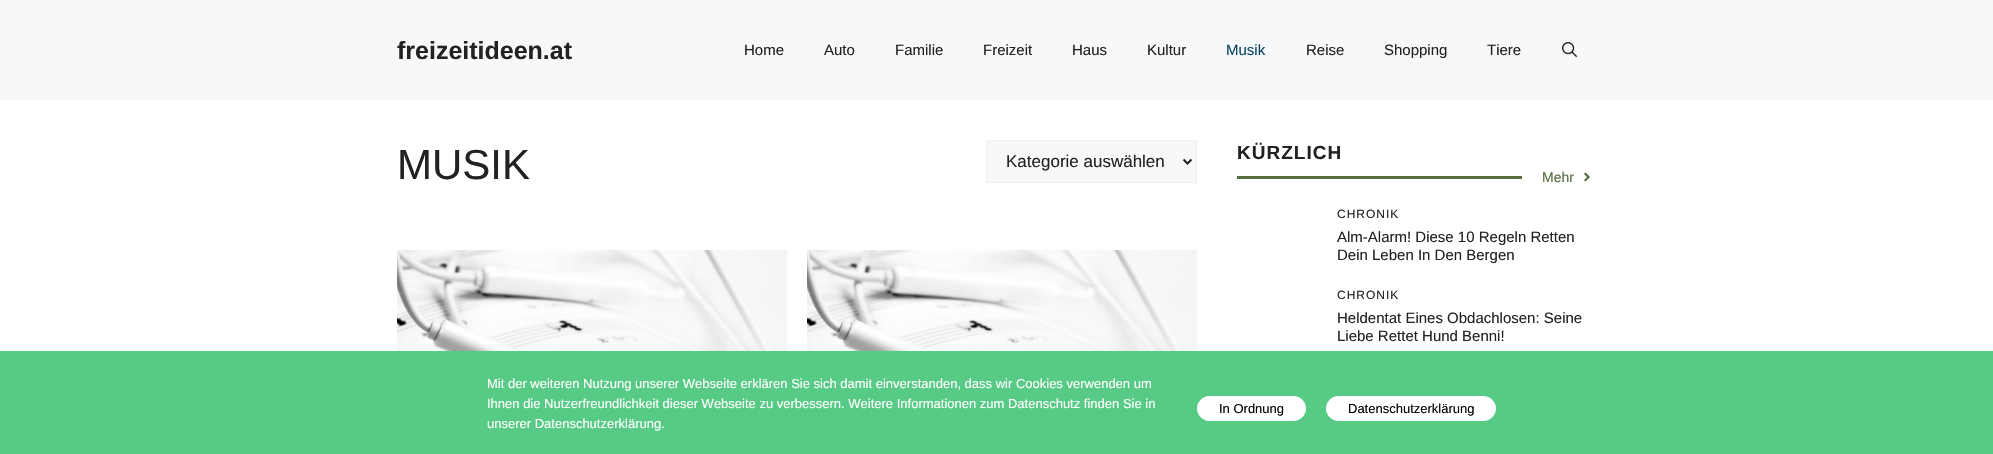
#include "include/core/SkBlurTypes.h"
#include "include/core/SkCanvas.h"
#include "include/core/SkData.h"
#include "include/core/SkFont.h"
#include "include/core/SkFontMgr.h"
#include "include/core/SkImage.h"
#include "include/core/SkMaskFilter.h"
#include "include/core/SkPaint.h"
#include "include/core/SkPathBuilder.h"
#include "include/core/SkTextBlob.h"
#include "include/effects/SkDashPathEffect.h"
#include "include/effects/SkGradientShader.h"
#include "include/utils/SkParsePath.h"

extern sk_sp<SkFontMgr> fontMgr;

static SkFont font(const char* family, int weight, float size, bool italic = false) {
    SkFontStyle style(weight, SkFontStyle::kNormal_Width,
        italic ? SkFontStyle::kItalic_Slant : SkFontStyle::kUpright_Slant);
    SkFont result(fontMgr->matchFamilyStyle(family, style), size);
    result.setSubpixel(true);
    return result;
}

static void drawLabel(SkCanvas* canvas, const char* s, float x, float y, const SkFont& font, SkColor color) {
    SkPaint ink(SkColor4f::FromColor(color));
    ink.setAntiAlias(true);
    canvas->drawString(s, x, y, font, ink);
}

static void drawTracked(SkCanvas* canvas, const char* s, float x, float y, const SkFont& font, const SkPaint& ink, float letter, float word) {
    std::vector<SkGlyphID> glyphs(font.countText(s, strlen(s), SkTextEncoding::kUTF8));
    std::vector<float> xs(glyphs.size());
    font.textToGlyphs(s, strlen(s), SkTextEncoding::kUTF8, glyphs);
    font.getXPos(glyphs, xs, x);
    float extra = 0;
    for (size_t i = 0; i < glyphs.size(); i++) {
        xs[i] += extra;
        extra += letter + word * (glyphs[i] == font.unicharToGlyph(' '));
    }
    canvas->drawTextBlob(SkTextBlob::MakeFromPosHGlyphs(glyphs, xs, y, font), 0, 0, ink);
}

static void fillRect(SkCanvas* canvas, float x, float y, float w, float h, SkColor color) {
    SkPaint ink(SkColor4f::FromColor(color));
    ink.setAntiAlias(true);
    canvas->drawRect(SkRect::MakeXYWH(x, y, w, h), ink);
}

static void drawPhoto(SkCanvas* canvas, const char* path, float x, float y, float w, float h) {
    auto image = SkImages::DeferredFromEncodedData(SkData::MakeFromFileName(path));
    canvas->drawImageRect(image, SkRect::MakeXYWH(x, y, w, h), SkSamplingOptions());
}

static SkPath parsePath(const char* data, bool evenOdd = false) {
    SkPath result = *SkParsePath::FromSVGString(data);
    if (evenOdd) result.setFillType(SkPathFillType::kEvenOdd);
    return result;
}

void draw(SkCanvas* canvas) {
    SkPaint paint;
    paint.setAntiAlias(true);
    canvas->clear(0xFFFFFFFF);
    fillRect(canvas, 0, 0, 1993, 100, 0xFFF7F8F9);
    SkFont font1 = font("Liberation Sans", 700, 25);
    drawLabel(canvas, "freizeitideen.at", 397, 59, font1, 0xFF222222);
    SkFont font2 = font("Liberation Sans", 400, 15);
    drawLabel(canvas, "Home", 744, 55, font2, 0xFF222222);
    drawLabel(canvas, "Auto", 824, 55, font2, 0xFF222222);
    drawLabel(canvas, "Familie", 895, 55, font2, 0xFF222222);
    drawLabel(canvas, "Freizeit", 983, 55, font2, 0xFF222222);
    drawLabel(canvas, "Haus", 1072, 55, font2, 0xFF222222);
    drawLabel(canvas, "Kultur", 1147, 55, font2, 0xFF222222);
    drawLabel(canvas, "Musik", 1226, 55, font2, 0xFF0C4767);
    drawLabel(canvas, "Reise", 1306, 55, font2, 0xFF222222);
    drawLabel(canvas, "Shopping", 1384, 55, font2, 0xFF222222);
    drawLabel(canvas, "Tiere", 1487, 55, font2, 0xFF222222);
    drawPhoto(canvas, "assets/img1.png", 1562, 42, 15, 15);
    SkFont font3 = font("Liberation Sans", 400, 42);
    drawLabel(canvas, "MUSIK", 397, 179, font3, 0xFF222222);
    paint.setColor(0xFFF7F8F9);
    canvas->drawRect(SkRect::MakeXYWH(986.5f, 140.5f, 210, 42), paint);
    paint.setStroke(true);
    paint.setStrokeWidth(1);
    paint.setColor(0xFFF0F0F0);
    canvas->drawRect(SkRect::MakeXYWH(986.5f, 140.5f, 210, 42), paint);
    paint.setStrokeWidth(2);
    paint.setColor(0xFF222222);
    canvas->drawPath(parsePath("M1183.5 159.5L1187.5 163.5L1191.5 159.5"), paint);
    SkFont font4 = font("Liberation Sans", 400, 17);
    drawLabel(canvas, "Kategorie auswählen", 1006, 167, font4, 0xFF222222);
    drawPhoto(canvas, "assets/img2.png", 397, 250, 390, 101);
    drawPhoto(canvas, "assets/img3.png", 807, 250, 390, 101);
    SkFont font5 = font("Liberation Sans", 700, 19);
    paint.setStroke(false);
    drawTracked(canvas, "KÜRZLICH", 1237, 159, font5, paint, 1, 0);
    fillRect(canvas, 1237, 176, 285, 3, 0xFF566E3D);
    SkFont font6 = font("Liberation Sans", 400, 14);
    drawLabel(canvas, "Mehr", 1542, 182, font6, 0xFF566E3D);
    drawPhoto(canvas, "assets/img4.png", 1584, 172, 6, 10);
    SkFont font7 = font("Liberation Sans", 400, 12);
    drawTracked(canvas, "CHRONIK", 1337, 218, font7, paint, 1, 0);
    drawLabel(canvas, "Alm-Alarm! Diese 10 Regeln Retten", 1337, 242, font2, 0xFF222222);
    drawLabel(canvas, "Dein Leben In Den Bergen", 1337, 260, font2, 0xFF222222);
    drawTracked(canvas, "CHRONIK", 1337, 299, font7, paint, 1, 0);
    drawLabel(canvas, "Heldentat Eines Obdachlosen: Seine", 1337, 323, font2, 0xFF222222);
    drawLabel(canvas, "Liebe Rettet Hund Benni!", 1337, 341, font2, 0xFF222222);
    fillRect(canvas, 0, 351, 1993, 103, 0xFF57CA85);
    SkFont font8 = font("Liberation Sans", 400, 13);
    drawLabel(canvas, "Mit der weiteren Nutzung unserer Webseite erklären Sie sich damit einverstanden, dass wir Cookies verwenden um", 487, 388, font8, 0xFFFFFFFF);
    drawLabel(canvas, "Ihnen die Nutzerfreundlichkeit dieser Webseite zu verbessern. Weitere Informationen zum Datenschutz finden Sie in", 487, 408, font8, 0xFFFFFFFF);
    drawLabel(canvas, "unserer Datenschutzerklärung.", 487, 428, font8, 0xFFFFFFFF);
    paint.setColor(0xFFFFFFFF);
    canvas->drawRoundRect(SkRect::MakeXYWH(1198, 397, 107, 23), 11.5f, 11.5f, paint);
    paint.setStroke(true);
    canvas->drawRoundRect(SkRect::MakeXYWH(1198, 397, 107, 23), 11.5f, 11.5f, paint);
    drawLabel(canvas, "In Ordnung", 1219, 413, font8, 0xFF000000);
    paint.setStroke(false);
    canvas->drawRoundRect(SkRect::MakeXYWH(1327, 397, 168, 23), 11.5f, 11.5f, paint);
    paint.setStroke(true);
    canvas->drawRoundRect(SkRect::MakeXYWH(1327, 397, 168, 23), 11.5f, 11.5f, paint);
    drawLabel(canvas, "Datenschutzerklärung", 1348, 413, font8, 0xFF000000);
}
